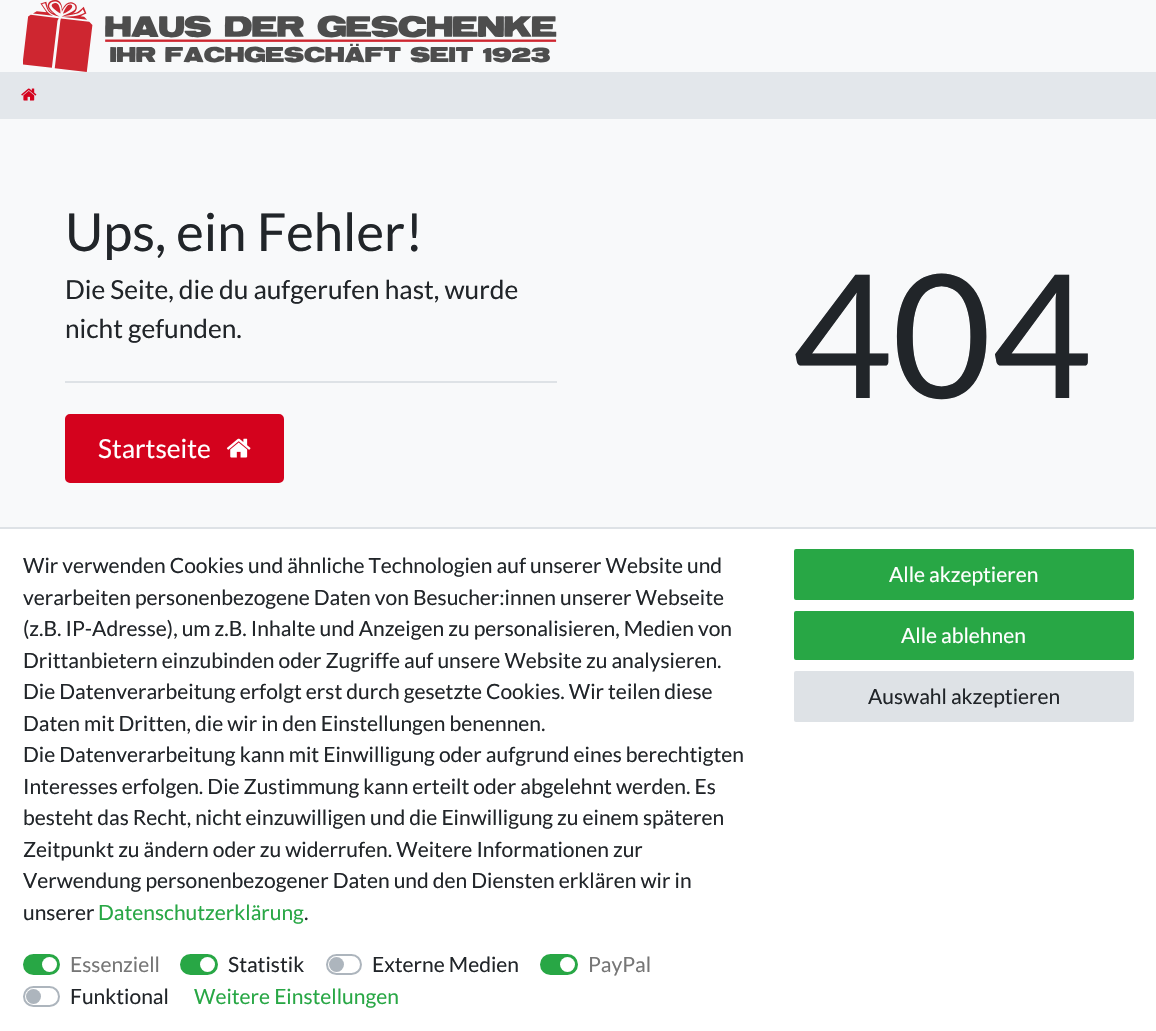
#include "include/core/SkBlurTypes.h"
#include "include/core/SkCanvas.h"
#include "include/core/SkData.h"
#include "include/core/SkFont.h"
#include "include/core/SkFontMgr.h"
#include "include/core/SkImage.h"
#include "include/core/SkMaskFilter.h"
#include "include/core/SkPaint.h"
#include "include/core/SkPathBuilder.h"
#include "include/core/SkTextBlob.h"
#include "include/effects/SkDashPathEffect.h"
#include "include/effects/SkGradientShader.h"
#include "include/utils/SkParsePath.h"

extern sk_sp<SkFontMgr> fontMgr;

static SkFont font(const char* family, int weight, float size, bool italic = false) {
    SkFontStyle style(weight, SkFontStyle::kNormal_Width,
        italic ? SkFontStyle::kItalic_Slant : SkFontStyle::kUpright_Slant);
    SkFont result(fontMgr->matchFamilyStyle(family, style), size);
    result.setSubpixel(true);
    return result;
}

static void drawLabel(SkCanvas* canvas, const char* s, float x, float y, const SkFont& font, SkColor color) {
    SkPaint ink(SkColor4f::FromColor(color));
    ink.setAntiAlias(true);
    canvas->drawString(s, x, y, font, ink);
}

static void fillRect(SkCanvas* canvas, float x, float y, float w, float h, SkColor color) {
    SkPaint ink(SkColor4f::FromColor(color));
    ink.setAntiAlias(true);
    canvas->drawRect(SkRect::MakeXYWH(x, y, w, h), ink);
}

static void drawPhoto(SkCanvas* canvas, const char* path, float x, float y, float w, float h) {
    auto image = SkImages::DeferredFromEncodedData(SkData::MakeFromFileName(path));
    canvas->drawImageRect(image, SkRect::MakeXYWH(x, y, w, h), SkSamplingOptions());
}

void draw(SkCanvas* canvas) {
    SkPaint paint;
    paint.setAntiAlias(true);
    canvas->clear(0xFFF8F9FA);
    drawPhoto(canvas, "assets/img1.png", 23, 0, 534, 72);
    fillRect(canvas, 0, 72, 1156, 47, 0xFFE3E7EB);
    drawPhoto(canvas, "assets/img2.png", 21, 88, 16, 13);
    SkFont font1 = font("Lato", 400, 52.5f);
    drawLabel(canvas, "Ups, ein Fehler!", 65, 251, font1, 0xFF212529);
    SkFont font2 = font("Lato", 400, 26.25f);
    drawLabel(canvas, "Die Seite, die du aufgerufen hast, wurde", 65, 299, font2, 0xFF212529);
    drawLabel(canvas, "nicht gefunden.", 65, 338, font2, 0xFF212529);
    fillRect(canvas, 65, 381, 492, 2, 0xFFDEE2E6);
    paint.setColor(0xFFD4021D);
    canvas->drawRoundRect(SkRect::MakeXYWH(66, 415, 217, 67), 4, 4, paint);
    paint.setStroke(true);
    paint.setStrokeWidth(2);
    canvas->drawRoundRect(SkRect::MakeXYWH(66, 415, 217, 67), 4, 4, paint);
    drawLabel(canvas, "Startseite", 98, 458, font2, 0xFFFFFFFF);
    drawPhoto(canvas, "assets/img3.png", 226, 438, 25, 20);
    SkFont font3 = font("Lato", 400, 172);
    drawLabel(canvas, "404", 792, 398, font3, 0xFF212529);
    fillRect(canvas, 0, 529, 1156, 502, 0xFFFFFFFF);
    fillRect(canvas, 0, 527, 1156, 2, 0xFFDEE2E6);
    SkFont font4 = font("Lato", 400, 21);
    drawLabel(canvas, "Wir verwenden Cookies und ähnliche Technologien auf unserer Website und", 23, 573, font4, 0xFF212529);
    drawLabel(canvas, "verarbeiten personenbezogene Daten von Besucher:innen unserer Webseite", 23, 605, font4, 0xFF212529);
    drawLabel(canvas, "(z.B. IP-Adresse), um z.B. Inhalte und Anzeigen zu personalisieren, Medien von", 23, 636, font4, 0xFF212529);
    drawLabel(canvas, "Drittanbietern einzubinden oder Zugriffe auf unsere Website zu analysieren.", 23, 668, font4, 0xFF212529);
    drawLabel(canvas, "Die Datenverarbeitung erfolgt erst durch gesetzte Cookies. Wir teilen diese", 23, 699, font4, 0xFF212529);
    drawLabel(canvas, "Daten mit Dritten, die wir in den Einstellungen benennen.", 23, 731, font4, 0xFF212529);
    drawLabel(canvas, "Die Datenverarbeitung kann mit Einwilligung oder aufgrund eines berechtigten", 23, 762, font4, 0xFF212529);
    drawLabel(canvas, "Interesses erfolgen. Die Zustimmung kann erteilt oder abgelehnt werden. Es", 23, 794, font4, 0xFF212529);
    drawLabel(canvas, "besteht das Recht, nicht einzuwilligen und die Einwilligung zu einem späteren", 23, 825, font4, 0xFF212529);
    drawLabel(canvas, "Zeitpunkt zu ändern oder zu widerrufen. Weitere Informationen zur", 23, 857, font4, 0xFF212529);
    drawLabel(canvas, "Verwendung personenbezogener Daten und den Diensten erklären wir in", 23, 888, font4, 0xFF212529);
    drawLabel(canvas, "unserer", 23, 920, font4, 0xFF212529);
    drawLabel(canvas, "Datenschutzerklärung", 98, 920, font4, 0xFF28A745);
    drawLabel(canvas, ".", 304, 920, font4, 0xFF212529);
    paint.setStroke(false);
    paint.setColor(0xFF28A745);
    canvas->drawRoundRect(SkRect::MakeXYWH(24, 955, 35, 19), 9.5f, 9.5f, paint);
    paint.setStroke(true);
    canvas->drawRoundRect(SkRect::MakeXYWH(24, 955, 35, 19), 9.5f, 9.5f, paint);
    drawLabel(canvas, "Essenziell", 70, 972, font4, 0xFF767676);
    paint.setStroke(false);
    paint.setColor(0xFFFFFFFF);
    canvas->drawCircle(49.5f, 964.5f, 7.5f, paint);
    paint.setColor(0xFF28A745);
    canvas->drawRoundRect(SkRect::MakeXYWH(181, 955, 36, 19), 9.5f, 9.5f, paint);
    paint.setStroke(true);
    canvas->drawRoundRect(SkRect::MakeXYWH(181, 955, 36, 19), 9.5f, 9.5f, paint);
    drawLabel(canvas, "Statistik", 228, 972, font4, 0xFF212529);
    paint.setStroke(false);
    paint.setColor(0xFFFFFFFF);
    canvas->drawCircle(207.5f, 964.5f, 7.5f, paint);
    paint.setStroke(true);
    paint.setColor(0xFFADB5BD);
    canvas->drawRoundRect(SkRect::MakeXYWH(327, 955, 34, 19), 9.5f, 9.5f, paint);
    drawLabel(canvas, "Externe Medien", 372, 972, font4, 0xFF212529);
    paint.setStroke(false);
    canvas->drawCircle(336.5f, 964.5f, 7.5f, paint);
    paint.setColor(0xFF28A745);
    canvas->drawRoundRect(SkRect::MakeXYWH(541, 955, 36, 19), 9.5f, 9.5f, paint);
    paint.setStroke(true);
    canvas->drawRoundRect(SkRect::MakeXYWH(541, 955, 36, 19), 9.5f, 9.5f, paint);
    drawLabel(canvas, "PayPal", 588, 972, font4, 0xFF767676);
    paint.setStroke(false);
    paint.setColor(0xFFFFFFFF);
    canvas->drawCircle(567.5f, 964.5f, 7.5f, paint);
    paint.setStroke(true);
    paint.setColor(0xFFADB5BD);
    canvas->drawRoundRect(SkRect::MakeXYWH(24, 987, 35, 19), 9.5f, 9.5f, paint);
    drawLabel(canvas, "Funktional", 70, 1004, font4, 0xFF212529);
    paint.setStroke(false);
    canvas->drawCircle(33.5f, 996.5f, 7.5f, paint);
    drawLabel(canvas, "Weitere Einstellungen", 194, 1004, font4, 0xFF28A745);
    paint.setColor(0xFF28A745);
    canvas->drawRoundRect(SkRect::MakeXYWH(795, 550, 338, 49), 1, 1, paint);
    paint.setStroke(true);
    canvas->drawRoundRect(SkRect::MakeXYWH(795, 550, 338, 49), 1, 1, paint);
    drawLabel(canvas, "Alle akzeptieren", 889, 582, font4, 0xFFFFFFFF);
    paint.setStroke(false);
    canvas->drawRoundRect(SkRect::MakeXYWH(795, 612, 338, 47), 1, 1, paint);
    paint.setStroke(true);
    canvas->drawRoundRect(SkRect::MakeXYWH(795, 612, 338, 47), 1, 1, paint);
    drawLabel(canvas, "Alle ablehnen", 901, 643, font4, 0xFFFFFFFF);
    paint.setStroke(false);
    paint.setColor(0xFFDEE2E6);
    canvas->drawRoundRect(SkRect::MakeXYWH(795, 672, 338, 49), 1, 1, paint);
    paint.setStroke(true);
    canvas->drawRoundRect(SkRect::MakeXYWH(795, 672, 338, 49), 1, 1, paint);
    drawLabel(canvas, "Auswahl akzeptieren", 868, 704, font4, 0xFF212529);
}
